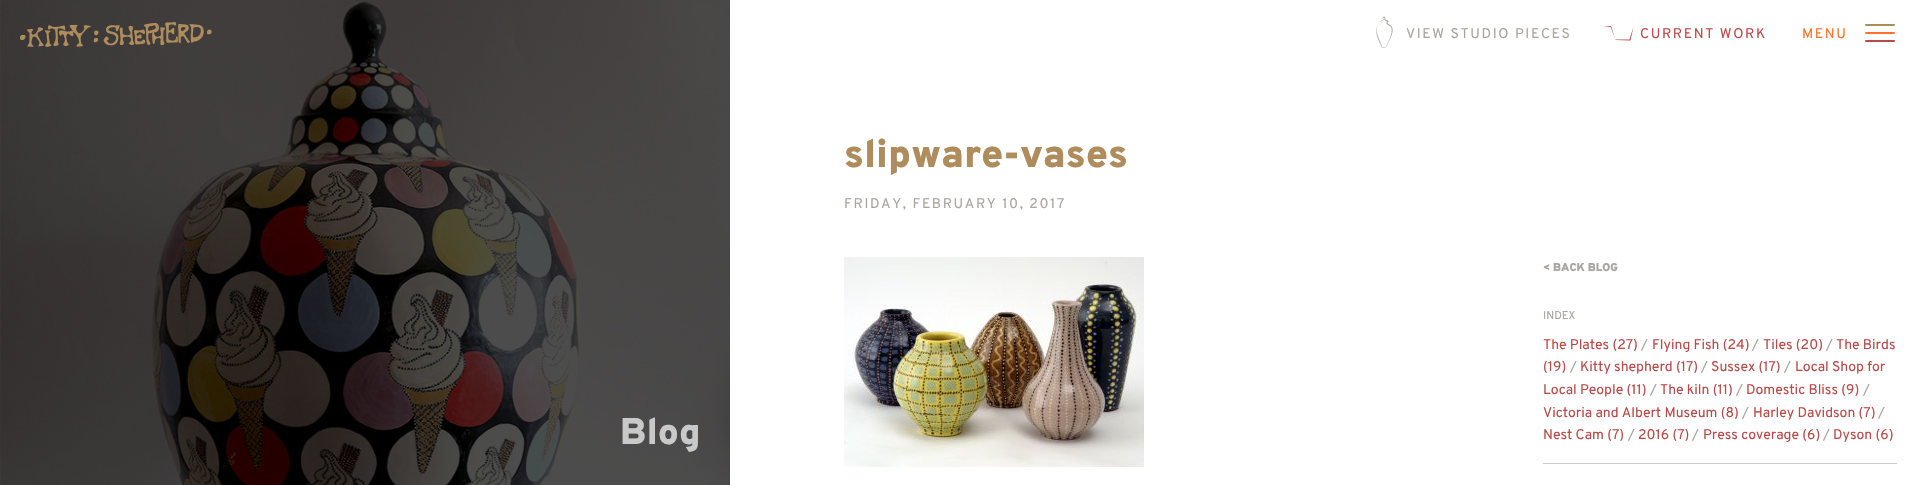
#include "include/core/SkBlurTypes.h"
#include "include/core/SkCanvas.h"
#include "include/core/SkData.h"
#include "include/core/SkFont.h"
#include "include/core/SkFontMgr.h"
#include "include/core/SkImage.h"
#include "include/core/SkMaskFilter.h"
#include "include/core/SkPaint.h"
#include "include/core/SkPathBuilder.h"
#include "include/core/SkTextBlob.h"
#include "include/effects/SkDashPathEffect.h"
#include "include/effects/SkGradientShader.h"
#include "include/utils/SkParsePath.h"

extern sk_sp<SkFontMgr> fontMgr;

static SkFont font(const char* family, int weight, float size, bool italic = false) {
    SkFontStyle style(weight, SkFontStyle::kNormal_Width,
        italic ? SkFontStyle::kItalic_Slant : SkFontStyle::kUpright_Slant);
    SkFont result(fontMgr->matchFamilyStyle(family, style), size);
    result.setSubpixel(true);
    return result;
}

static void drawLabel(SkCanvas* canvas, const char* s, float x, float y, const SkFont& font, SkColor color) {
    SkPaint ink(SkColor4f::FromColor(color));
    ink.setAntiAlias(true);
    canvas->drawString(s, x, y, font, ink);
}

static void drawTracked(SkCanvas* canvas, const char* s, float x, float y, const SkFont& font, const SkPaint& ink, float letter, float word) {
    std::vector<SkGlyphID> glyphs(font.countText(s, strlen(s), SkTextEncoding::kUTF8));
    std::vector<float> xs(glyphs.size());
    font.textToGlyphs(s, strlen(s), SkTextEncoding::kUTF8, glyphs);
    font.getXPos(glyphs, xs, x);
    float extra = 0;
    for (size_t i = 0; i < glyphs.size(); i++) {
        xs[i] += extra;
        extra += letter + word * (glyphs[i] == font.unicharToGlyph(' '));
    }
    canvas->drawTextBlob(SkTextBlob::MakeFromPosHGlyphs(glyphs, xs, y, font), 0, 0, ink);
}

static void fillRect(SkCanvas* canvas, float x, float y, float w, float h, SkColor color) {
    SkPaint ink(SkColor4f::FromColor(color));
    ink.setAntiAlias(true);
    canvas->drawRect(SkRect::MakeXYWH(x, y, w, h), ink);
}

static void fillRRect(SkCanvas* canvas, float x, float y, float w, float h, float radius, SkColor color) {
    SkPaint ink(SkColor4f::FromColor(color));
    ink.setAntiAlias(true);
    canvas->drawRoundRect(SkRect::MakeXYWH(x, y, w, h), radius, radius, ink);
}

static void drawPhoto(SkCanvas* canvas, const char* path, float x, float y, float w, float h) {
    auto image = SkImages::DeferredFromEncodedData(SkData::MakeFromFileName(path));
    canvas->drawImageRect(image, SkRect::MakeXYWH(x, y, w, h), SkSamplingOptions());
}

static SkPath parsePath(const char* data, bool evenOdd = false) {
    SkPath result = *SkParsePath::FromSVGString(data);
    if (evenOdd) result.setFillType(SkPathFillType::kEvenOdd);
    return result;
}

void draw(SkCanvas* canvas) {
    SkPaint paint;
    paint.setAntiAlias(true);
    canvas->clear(0xFFFFFFFF);
    drawPhoto(canvas, "assets/img3.png", 0, 0, 730, 485);
    drawPhoto(canvas, "assets/img1.png", 20, 21, 192, 26);
    drawPhoto(canvas, "assets/img2.png", 1376, 16, 17, 32);
    SkFont font1 = font("Overpass", 400, 14);
    paint.setColor(0xFFA8A5A0);
    drawTracked(canvas, "VIEW STUDIO PIECES", 1406, 38, font1, paint, 1.6f, 0);
    paint.setColor(0xFFBA4947);
    canvas->drawPath(parsePath("M1603 26.5L1611 26L1615.5 40V39.5H1630H1629.5L1633.5 26.5L1630.5 40.5L1615.5 40L1610.5 26.5V27Z"), paint);
    drawTracked(canvas, "CURRENT WORK", 1640, 38, font1, paint, 1.6f, 0);
    fillRRect(canvas, 1865, 24, 30, 2, 1, 0xFFAE8C5C);
    paint.setColor(0xFFFF7129);
    drawTracked(canvas, "MENU", 1802, 38, font1, paint, 1.6f, 0);
    fillRRect(canvas, 1865, 32, 30, 2, 1, 0xFFFF7129);
    fillRRect(canvas, 1865, 40, 30, 2, 1, 0xFFBA4947);
    SkFont font2 = font("Overpass", 900, 37);
    drawLabel(canvas, "Blog", 620, 444, font2, 0xFFC9C9C9);
    SkFont font3 = font("Overpass", 900, 39.25f);
    drawLabel(canvas, "slipware-vases", 844, 167, font3, 0xFFAE8C5C);
    paint.setColor(0xFFA8A5A0);
    drawTracked(canvas, "FRIDAY, FEBRUARY 10, 2017", 844, 208, font1, paint, 1.6f, 0);
    drawPhoto(canvas, "assets/img4.png", 844, 257, 300, 210);
    SkFont font4 = font("Overpass", 900, 11.25f);
    drawLabel(canvas, "< BACK BLOG", 1543, 271, font4, 0xFFA8A5A0);
    fillRect(canvas, 1543, 463, 354, 1, 0xFFCCCCCC);
    SkFont font5 = font("Overpass", 400, 11.25f);
    drawLabel(canvas, "INDEX", 1543, 319, font5, 0xFFA8A5A0);
    drawLabel(canvas, "The Plates (27)", 1543, 349, font1, 0xFFBA4947);
    drawLabel(canvas, "/", 1641, 349, font1, 0xFFA8A5A0);
    drawLabel(canvas, "Flying Fish (24)", 1652, 349, font1, 0xFFBA4947);
    drawLabel(canvas, "/", 1752, 349, font1, 0xFFA8A5A0);
    drawLabel(canvas, "Tiles (20)", 1763, 349, font1, 0xFFBA4947);
    drawLabel(canvas, "/", 1826, 349, font1, 0xFFA8A5A0);
    drawLabel(canvas, "The Birds", 1836, 349, font1, 0xFFBA4947);
    drawLabel(canvas, "(19)", 1543, 371, font1, 0xFFBA4947);
    drawLabel(canvas, "/", 1570, 371, font1, 0xFFA8A5A0);
    drawLabel(canvas, "Kitty shepherd (17)", 1580, 371, font1, 0xFFBA4947);
    drawLabel(canvas, "/", 1701, 371, font1, 0xFFA8A5A0);
    drawLabel(canvas, "Sussex (17)", 1711, 371, font1, 0xFFBA4947);
    drawLabel(canvas, "/", 1784, 371, font1, 0xFFA8A5A0);
    drawLabel(canvas, "Local Shop for", 1795, 371, font1, 0xFFBA4947);
    drawLabel(canvas, "Local People (11)", 1543, 394, font1, 0xFFBA4947);
    drawLabel(canvas, "/", 1650, 394, font1, 0xFFA8A5A0);
    drawLabel(canvas, "The kiln (11)", 1660, 394, font1, 0xFFBA4947);
    drawLabel(canvas, "/", 1736, 394, font1, 0xFFA8A5A0);
    drawLabel(canvas, "Domestic Bliss (9)", 1746, 394, font1, 0xFFBA4947);
    drawLabel(canvas, "/", 1863, 394, font1, 0xFFA8A5A0);
    drawLabel(canvas, "Victoria and Albert Museum (8)", 1543, 417, font1, 0xFFBA4947);
    drawLabel(canvas, "/", 1742, 417, font1, 0xFFA8A5A0);
    drawLabel(canvas, "Harley Davidson (7)", 1753, 417, font1, 0xFFBA4947);
    drawLabel(canvas, "/", 1878, 417, font1, 0xFFA8A5A0);
    drawLabel(canvas, "Nest Cam (7)", 1543, 439, font1, 0xFFBA4947);
    drawLabel(canvas, "/", 1628, 439, font1, 0xFFA8A5A0);
    drawLabel(canvas, "2016 (7)", 1638, 439, font1, 0xFFBA4947);
    drawLabel(canvas, "/", 1692, 439, font1, 0xFFA8A5A0);
    drawLabel(canvas, "Press coverage (6)", 1703, 439, font1, 0xFFBA4947);
    drawLabel(canvas, "/", 1823, 439, font1, 0xFFA8A5A0);
    drawLabel(canvas, "Dyson (6)", 1833, 439, font1, 0xFFBA4947);
}
